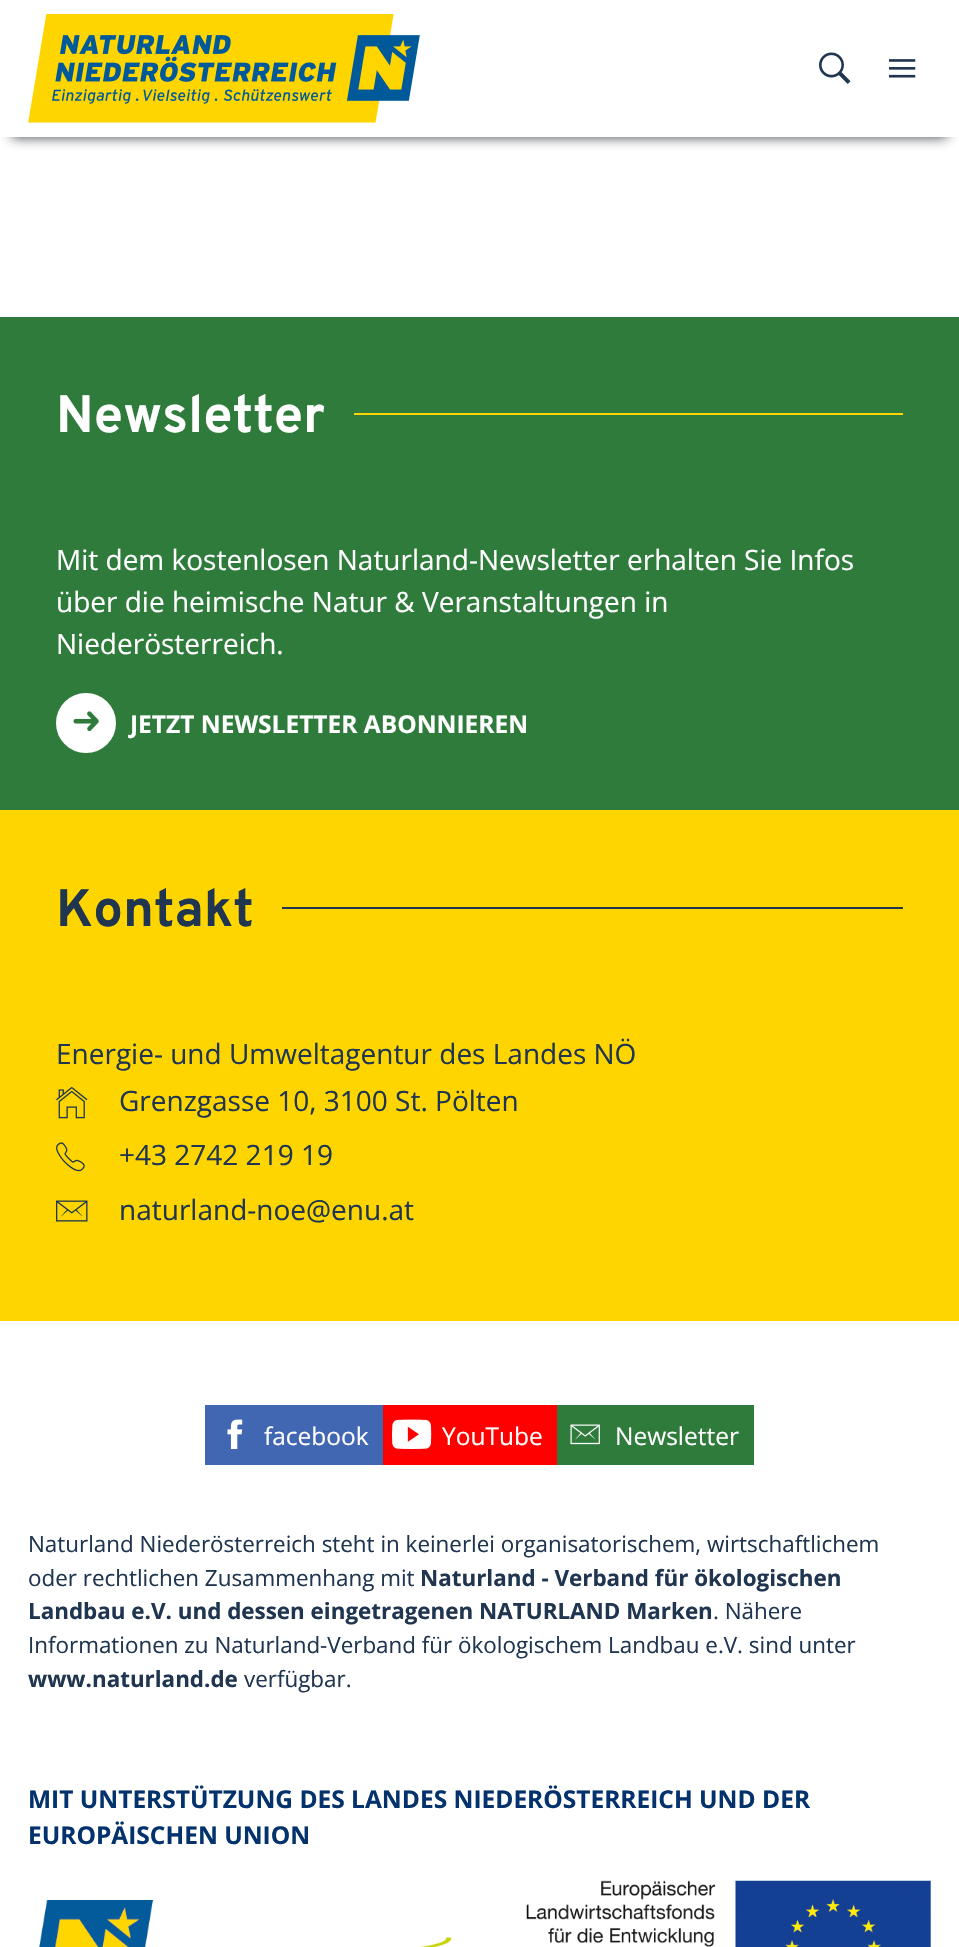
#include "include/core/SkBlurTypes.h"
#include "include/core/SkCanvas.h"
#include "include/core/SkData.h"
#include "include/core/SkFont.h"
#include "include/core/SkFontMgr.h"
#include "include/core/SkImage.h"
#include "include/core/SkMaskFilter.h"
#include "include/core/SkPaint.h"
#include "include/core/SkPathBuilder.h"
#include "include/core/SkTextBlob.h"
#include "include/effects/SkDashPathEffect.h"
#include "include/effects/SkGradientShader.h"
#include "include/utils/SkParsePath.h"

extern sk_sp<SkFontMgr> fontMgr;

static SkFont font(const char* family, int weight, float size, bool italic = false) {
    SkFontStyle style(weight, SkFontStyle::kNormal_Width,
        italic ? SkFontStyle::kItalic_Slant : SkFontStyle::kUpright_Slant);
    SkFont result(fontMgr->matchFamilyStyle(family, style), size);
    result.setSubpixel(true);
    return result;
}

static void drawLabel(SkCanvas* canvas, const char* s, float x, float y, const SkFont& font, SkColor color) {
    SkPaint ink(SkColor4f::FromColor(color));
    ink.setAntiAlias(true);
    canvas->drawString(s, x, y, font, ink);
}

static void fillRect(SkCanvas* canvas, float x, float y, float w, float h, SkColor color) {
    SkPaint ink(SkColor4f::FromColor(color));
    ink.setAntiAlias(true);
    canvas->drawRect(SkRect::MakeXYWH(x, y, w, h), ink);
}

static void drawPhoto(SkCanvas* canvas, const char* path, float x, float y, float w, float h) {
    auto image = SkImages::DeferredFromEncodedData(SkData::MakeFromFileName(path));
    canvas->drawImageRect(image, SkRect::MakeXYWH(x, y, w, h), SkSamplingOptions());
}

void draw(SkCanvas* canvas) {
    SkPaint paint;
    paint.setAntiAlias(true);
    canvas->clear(0xFFFFFFFF);
    paint.setColor(0xE6212529);
    paint.setMaskFilter(SkMaskFilter::MakeBlur(kNormal_SkBlurStyle, 6));
    canvas->drawRect(SkRect::MakeXYWH(12, 25, 935, 112), paint);
    paint.setMaskFilter(nullptr);
    fillRect(canvas, 0, 12, 959, 125, 0xFFFFFFFF);
    drawPhoto(canvas, "assets/img1.png", 28, 14, 392, 109);
    drawPhoto(canvas, "assets/img2.png", 819, 52, 32, 32);
    drawPhoto(canvas, "assets/img3.png", 889, 59, 27, 19);
    fillRect(canvas, 0, 317, 959, 493, 0xFF2F7B3B);
    SkFont font1 = font("Overpass", 700, 52.5f);
    drawLabel(canvas, "Newsletter", 56, 432, font1, 0xFFFFFFFF);
    fillRect(canvas, 354, 413, 549, 2, 0xFFFFD500);
    SkFont font2 = font("Open Sans", 400, 28);
    drawLabel(canvas, "Mit dem kostenlosen Naturland-Newsletter erhalten Sie Infos", 56, 570, font2, 0xFFFFFFFF);
    drawLabel(canvas, "über die heimische Natur & Veranstaltungen in", 56, 612, font2, 0xFFFFFFFF);
    drawLabel(canvas, "Niederösterreich.", 56, 654, font2, 0xFFFFFFFF);
    paint.setColor(0xFFFFFFFF);
    canvas->drawCircle(86, 723, 28, paint);
    paint.setStroke(true);
    paint.setStrokeWidth(4);
    canvas->drawCircle(86, 723, 28, paint);
    drawPhoto(canvas, "assets/img4.png", 73, 711, 26, 20);
    SkFont font3 = font("Open Sans", 700, 24.5f);
    drawLabel(canvas, "JETZT NEWSLETTER ABONNIEREN", 130, 733, font3, 0xFFFFFFFF);
    fillRect(canvas, 0, 810, 959, 511, 0xFFFFD500);
    drawLabel(canvas, "Kontakt", 56, 926, font1, 0xFF1F3550);
    fillRect(canvas, 282, 907, 621, 2, 0xFF1F3550);
    drawLabel(canvas, "Energie- und Umweltagentur des Landes NÖ", 56, 1064, font2, 0xFF1F3550);
    drawPhoto(canvas, "assets/img5.png", 56, 1086, 32, 33);
    drawLabel(canvas, "Grenzgasse 10, 3100 St. Pölten", 119, 1111, font2, 0xFF1F3550);
    drawPhoto(canvas, "assets/img6.png", 56, 1142, 29, 30);
    drawLabel(canvas, "+43 2742 219 19", 119, 1165, font2, 0xFF1F3550);
    drawPhoto(canvas, "assets/img7.png", 56, 1200, 32, 22);
    drawLabel(canvas, "naturland-noe@enu.at", 119, 1220, font2, 0xFF1F3550);
    fillRect(canvas, 205, 1405, 178, 60, 0xFF4267B2);
    drawPhoto(canvas, "assets/img8.png", 227, 1419, 16, 30);
    SkFont font4 = font("Open Sans", 400, 24.5f);
    drawLabel(canvas, "facebook", 264, 1445, font4, 0xFFFFFFFF);
    fillRect(canvas, 383, 1405, 174, 60, 0xFFFF0000);
    drawPhoto(canvas, "assets/img9.png", 392, 1419, 40, 30);
    drawLabel(canvas, "YouTube", 442, 1445, font4, 0xFFFFFFFF);
    fillRect(canvas, 557, 1405, 197, 60, 0xFF2F7B3B);
    drawPhoto(canvas, "assets/img10.png", 570, 1424, 30, 21);
    drawLabel(canvas, "Newsletter", 615, 1445, font4, 0xFFFFFFFF);
    SkFont font5 = font("Open Sans", 400, 22.4f);
    drawLabel(canvas, "Naturland Niederösterreich steht in keinerlei organisatorischem, wirtschaftlichem", 28, 1552, font5, 0xFF1F3550);
    drawLabel(canvas, "oder rechtlichen Zusammenhang mit", 28, 1586, font5, 0xFF1F3550);
    SkFont font6 = font("Open Sans", 700, 22.4f);
    drawLabel(canvas, "Naturland - Verband für ökologischen", 420, 1586, font6, 0xFF1F3550);
    drawLabel(canvas, "Landbau e.V. und dessen eingetragenen NATURLAND Marken", 28, 1619, font6, 0xFF1F3550);
    drawLabel(canvas, ". Nähere", 713, 1619, font5, 0xFF1F3550);
    drawLabel(canvas, "Informationen zu Naturland-Verband für ökologischem Landbau e.V. sind unter", 28, 1653, font5, 0xFF1F3550);
    drawLabel(canvas, "www.naturland.de", 28, 1687, font6, 0xFF1F3550);
    drawLabel(canvas, "verfügbar.", 244, 1687, font5, 0xFF1F3550);
    drawLabel(canvas, "MIT UNTERSTÜTZUNG DES LANDES NIEDERÖSTERREICH UND DER", 28, 1808, font3, 0xFF03326C);
    drawLabel(canvas, "EUROPÄISCHEN UNION", 28, 1844, font3, 0xFF03326C);
    drawPhoto(canvas, "assets/img11.png", 39, 1900, 413, 47);
    drawPhoto(canvas, "assets/img12.png", 526, 1880, 405, 67);
}
